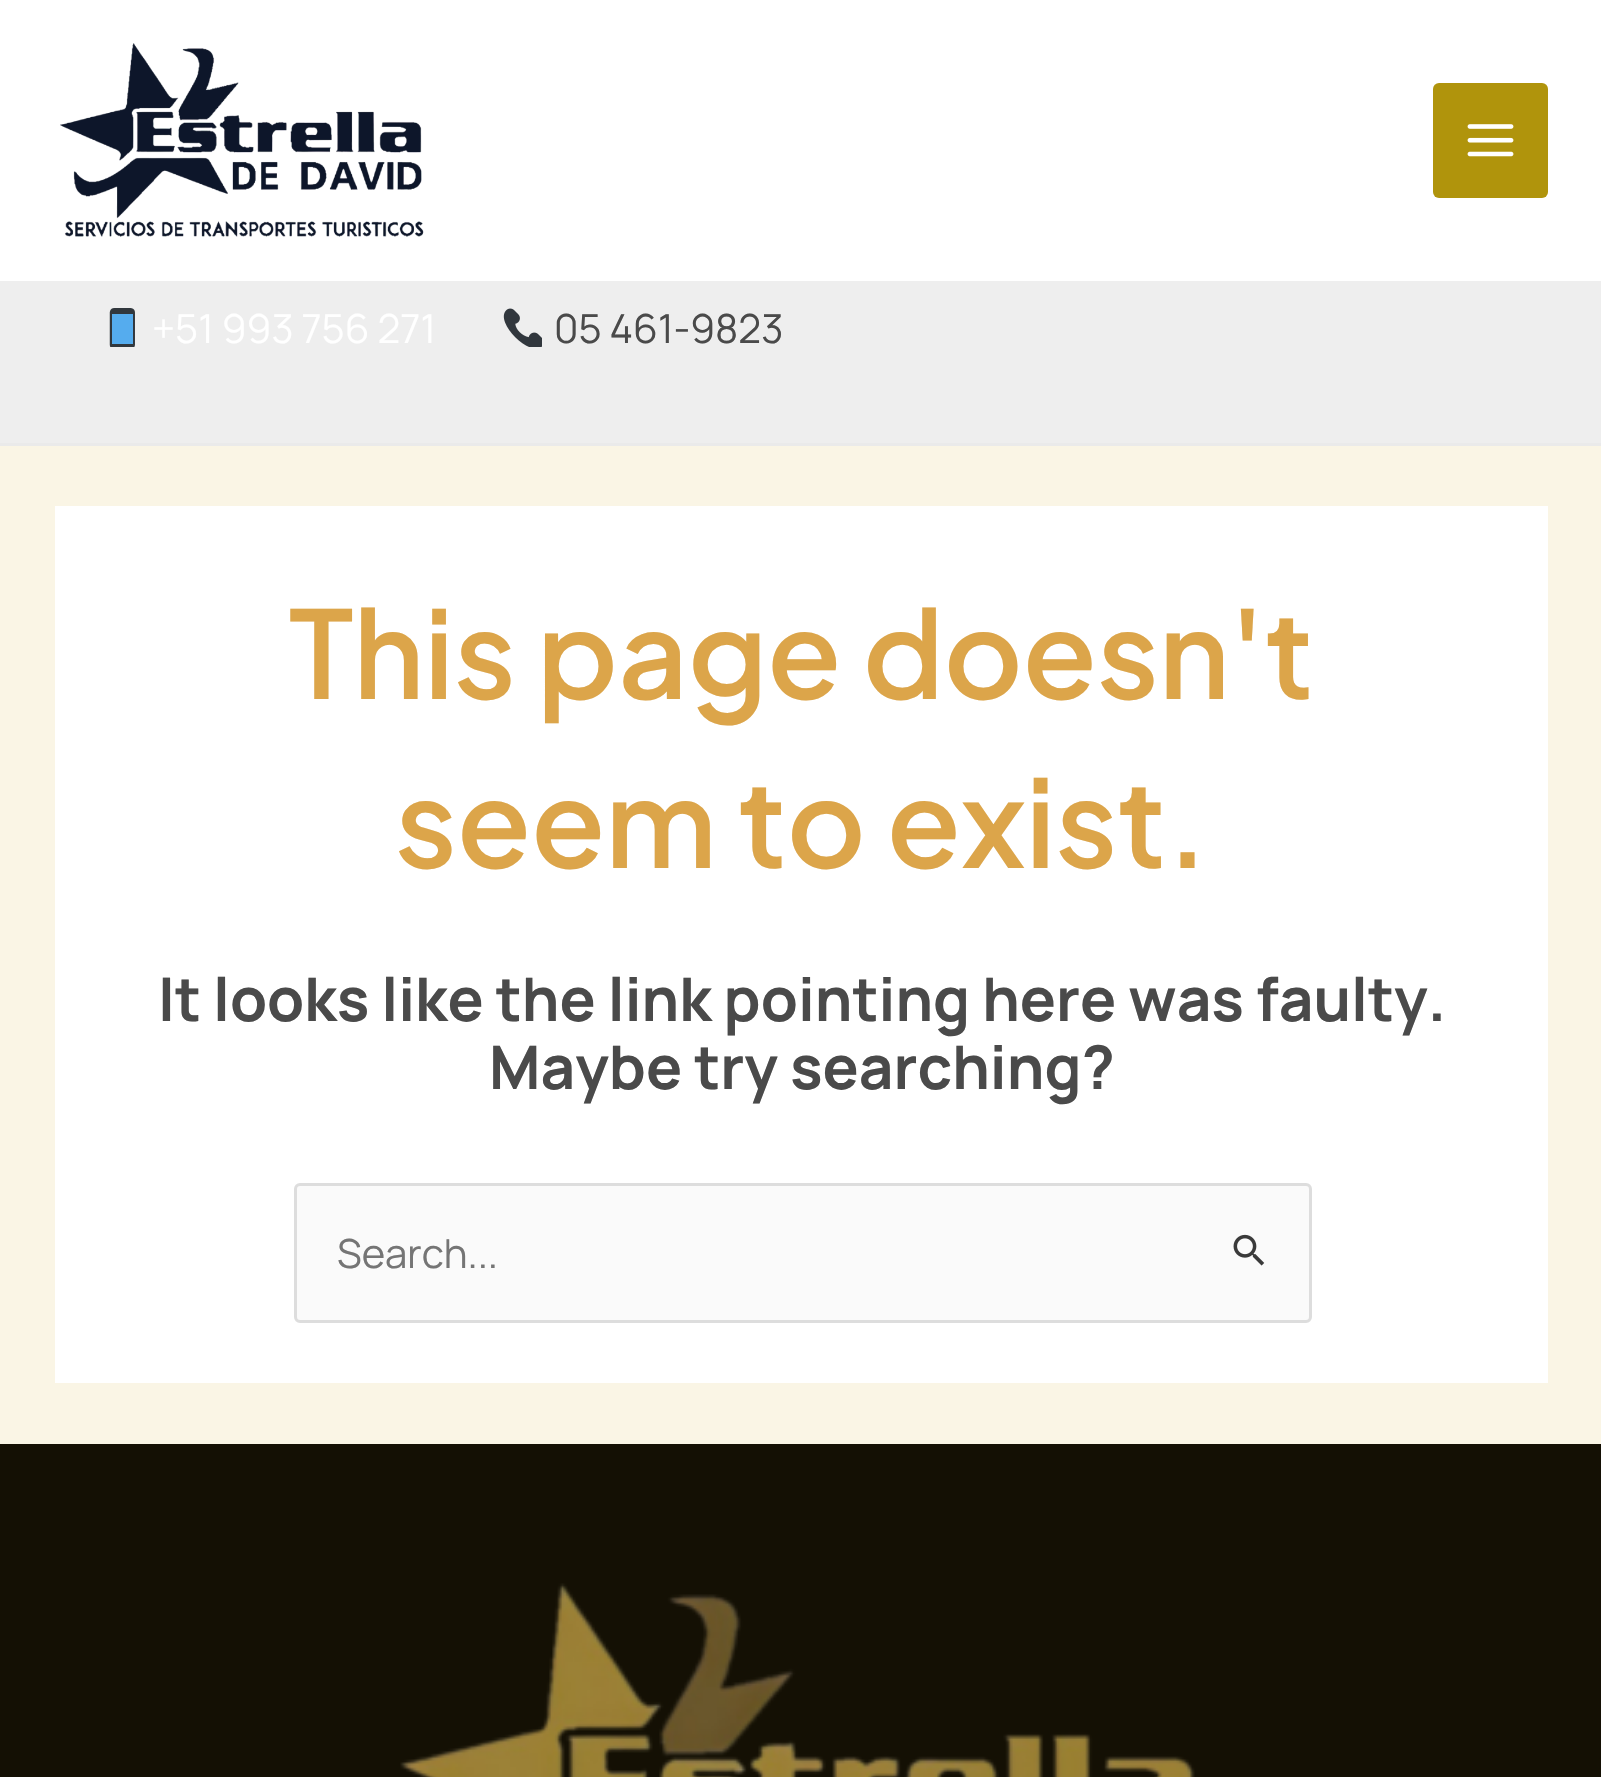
#include "include/core/SkBlurTypes.h"
#include "include/core/SkCanvas.h"
#include "include/core/SkData.h"
#include "include/core/SkFont.h"
#include "include/core/SkFontMgr.h"
#include "include/core/SkImage.h"
#include "include/core/SkMaskFilter.h"
#include "include/core/SkPaint.h"
#include "include/core/SkPathBuilder.h"
#include "include/core/SkTextBlob.h"
#include "include/effects/SkDashPathEffect.h"
#include "include/effects/SkGradientShader.h"
#include "include/utils/SkParsePath.h"

extern sk_sp<SkFontMgr> fontMgr;

static SkFont font(const char* family, int weight, float size, bool italic = false) {
    SkFontStyle style(weight, SkFontStyle::kNormal_Width,
        italic ? SkFontStyle::kItalic_Slant : SkFontStyle::kUpright_Slant);
    SkFont result(fontMgr->matchFamilyStyle(family, style), size);
    result.setSubpixel(true);
    return result;
}

static void drawLabel(SkCanvas* canvas, const char* s, float x, float y, const SkFont& font, SkColor color) {
    SkPaint ink(SkColor4f::FromColor(color));
    ink.setAntiAlias(true);
    canvas->drawString(s, x, y, font, ink);
}

static void fillRect(SkCanvas* canvas, float x, float y, float w, float h, SkColor color) {
    SkPaint ink(SkColor4f::FromColor(color));
    ink.setAntiAlias(true);
    canvas->drawRect(SkRect::MakeXYWH(x, y, w, h), ink);
}

static void fillRRect(SkCanvas* canvas, float x, float y, float w, float h, float radius, SkColor color) {
    SkPaint ink(SkColor4f::FromColor(color));
    ink.setAntiAlias(true);
    canvas->drawRoundRect(SkRect::MakeXYWH(x, y, w, h), radius, radius, ink);
}

static void drawPhoto(SkCanvas* canvas, const char* path, float x, float y, float w, float h) {
    auto image = SkImages::DeferredFromEncodedData(SkData::MakeFromFileName(path));
    canvas->drawImageRect(image, SkRect::MakeXYWH(x, y, w, h), SkSamplingOptions());
}

void draw(SkCanvas* canvas) {
    SkPaint paint;
    paint.setAntiAlias(true);
    canvas->clear(0xFFFAF5E5);
    fillRect(canvas, 0, 0, 1601, 281, 0xFFFFFFFF);
    drawPhoto(canvas, "assets/img1.png", 60, 43, 364, 194);
    fillRRect(canvas, 1433, 83, 115, 115, 6, 0xFFB0940C);
    drawPhoto(canvas, "assets/img2.png", 1467, 124, 47, 33);
    fillRect(canvas, 0, 281, 1601, 162, 0xFFEEEEEE);
    fillRect(canvas, 0, 443, 1601, 3, 0xFFEAEAEA);
    drawPhoto(canvas, "assets/img3.png", 109, 308, 26, 39);
    SkFont font1 = font("Manrope", 400, 40);
    drawLabel(canvas, "+51 993 756 271", 152, 343, font1, 0xFFFFFFFF);
    drawPhoto(canvas, "assets/img4.png", 503, 308, 39, 39);
    drawLabel(canvas, "05 461-9823", 554, 343, font1, 0xFF4A4A4A);
    fillRect(canvas, 55, 506, 1493, 877, 0xFFFFFFFF);
    SkFont font2 = font("Plus Jakarta Sans", 600, 121);
    drawLabel(canvas, "This page doesn't", 289, 699, font2, 0xFFDCA54A);
    drawLabel(canvas, "seem to exist.", 395, 868, font2, 0xFFDCA54A);
    SkFont font3 = font("Manrope", 700, 60.2f);
    drawLabel(canvas, "It looks like the link pointing here was faulty.", 158, 1021, font3, 0xFF4A4A4A);
    drawLabel(canvas, "Maybe try searching?", 489, 1089, font3, 0xFF4A4A4A);
    paint.setColor(0xFFFAFAFA);
    canvas->drawRoundRect(SkRect::MakeXYWH(295.5f, 1184.5f, 1015, 137), 4.5f, 4.5f, paint);
    paint.setStroke(true);
    paint.setStrokeWidth(3);
    paint.setColor(0xFFDDDDDD);
    canvas->drawRoundRect(SkRect::MakeXYWH(295.5f, 1184.5f, 1015, 137), 4.5f, 4.5f, paint);
    drawLabel(canvas, "Search...", 337, 1268, font1, 0xFF757575);
    drawPhoto(canvas, "assets/img5.png", 1233, 1234, 32, 32);
    fillRect(canvas, 0, 1444, 1601, 333, 0xFF141004);
    drawPhoto(canvas, "assets/img6.png", 400, 1583, 795, 194);
}
